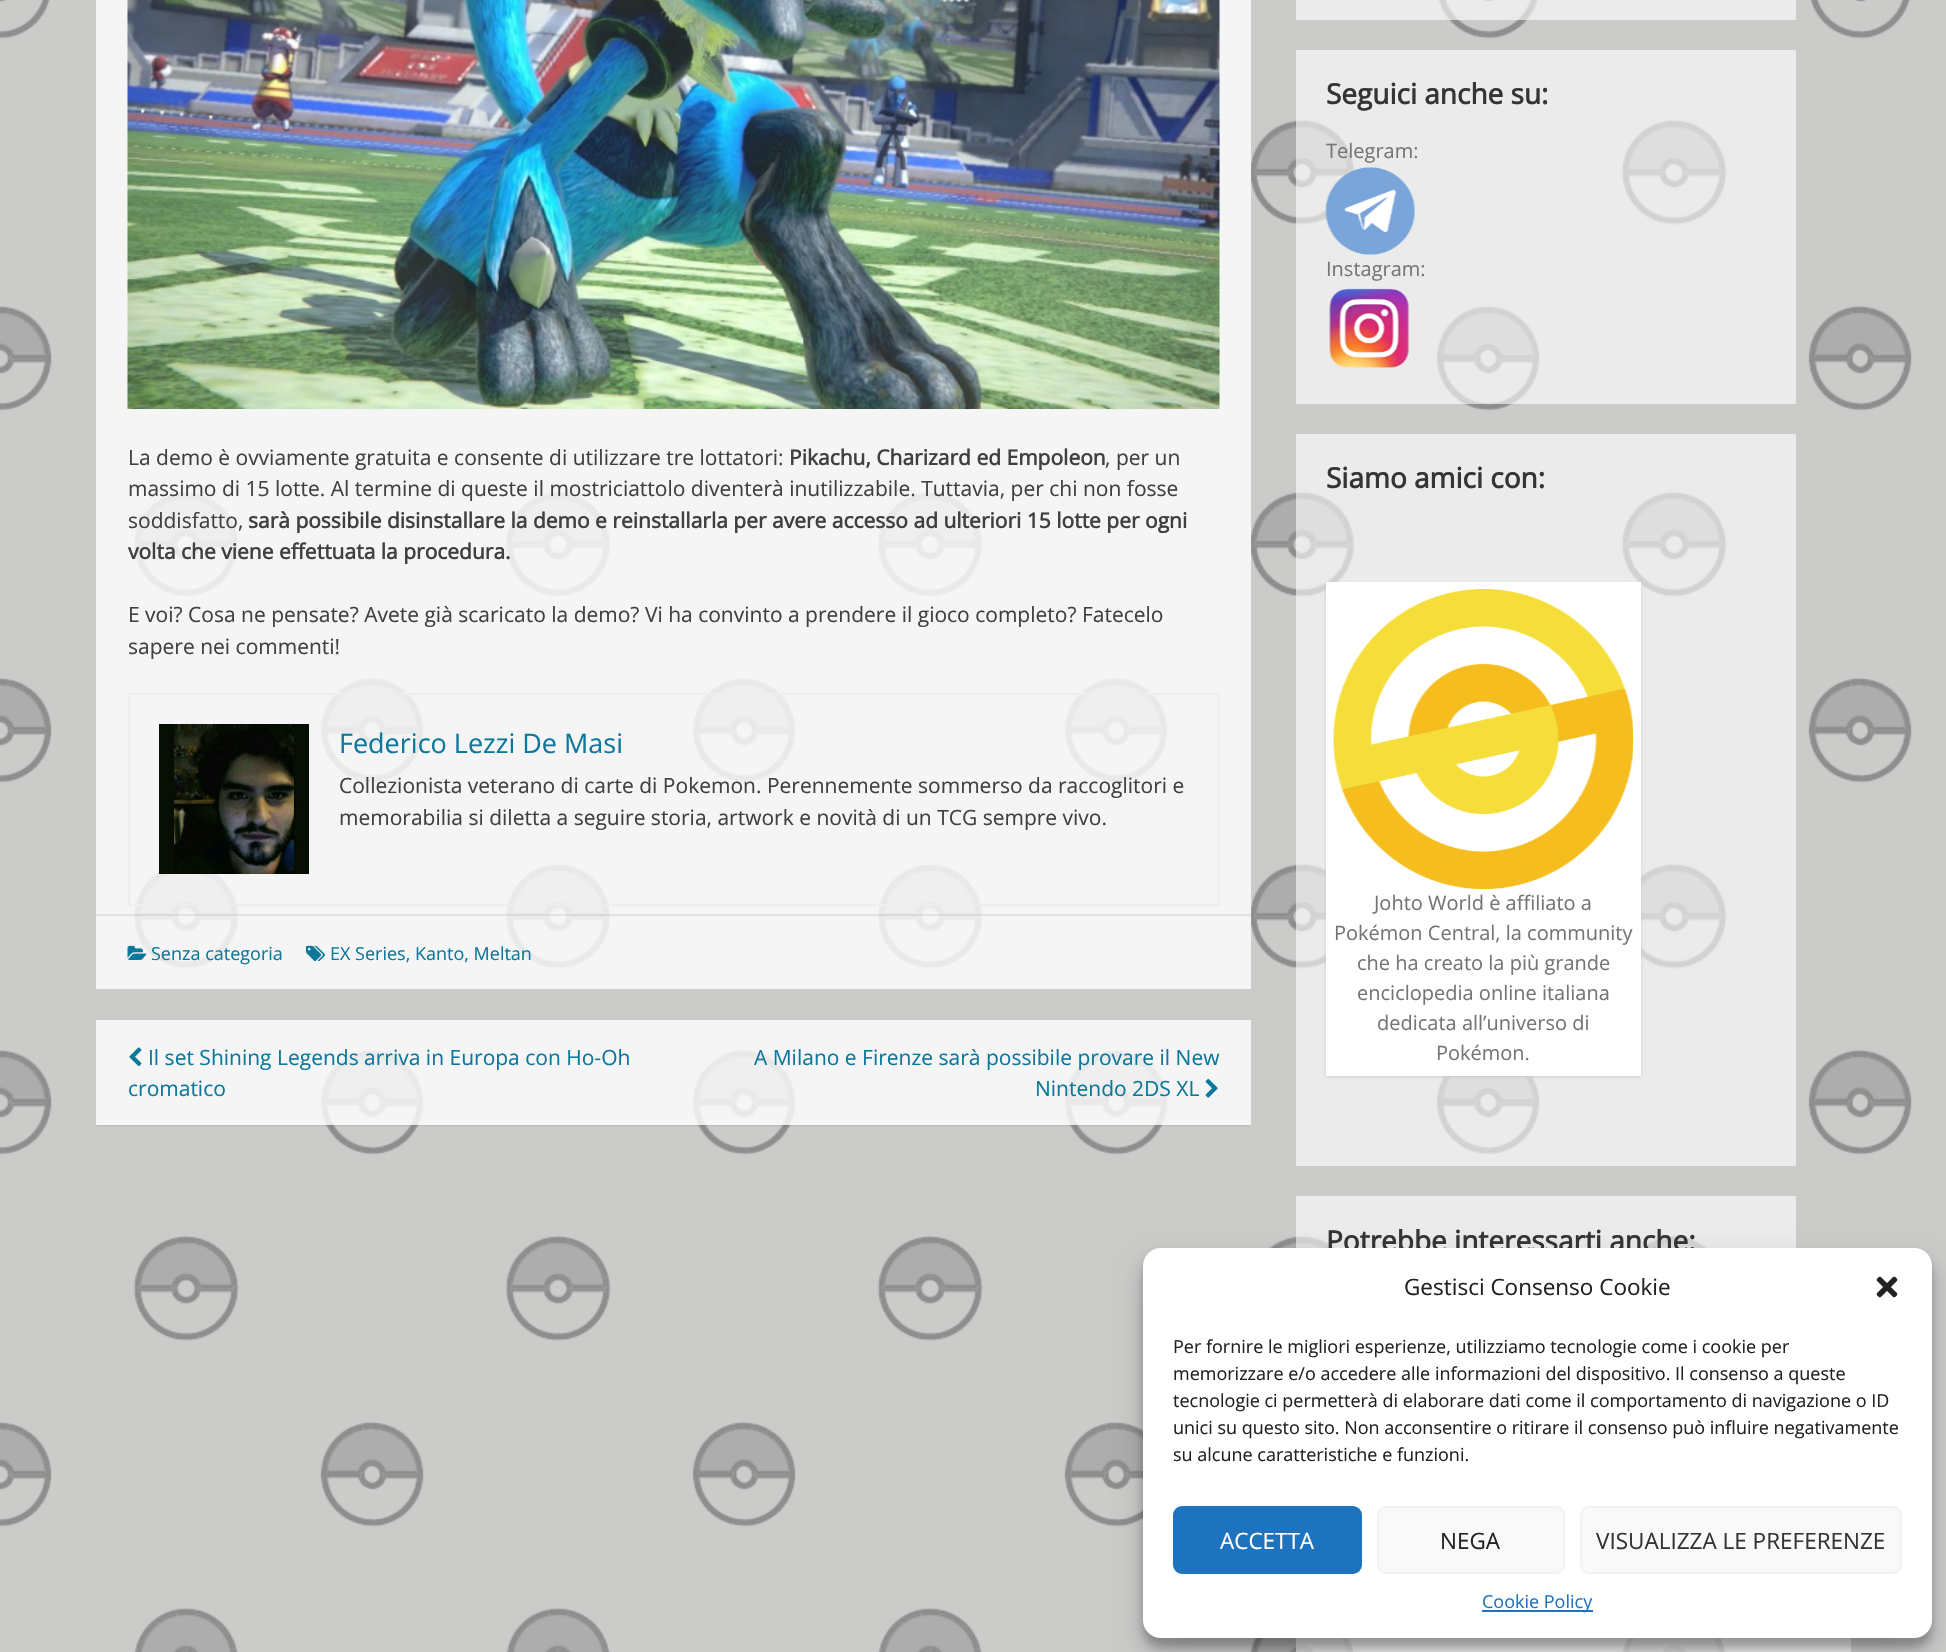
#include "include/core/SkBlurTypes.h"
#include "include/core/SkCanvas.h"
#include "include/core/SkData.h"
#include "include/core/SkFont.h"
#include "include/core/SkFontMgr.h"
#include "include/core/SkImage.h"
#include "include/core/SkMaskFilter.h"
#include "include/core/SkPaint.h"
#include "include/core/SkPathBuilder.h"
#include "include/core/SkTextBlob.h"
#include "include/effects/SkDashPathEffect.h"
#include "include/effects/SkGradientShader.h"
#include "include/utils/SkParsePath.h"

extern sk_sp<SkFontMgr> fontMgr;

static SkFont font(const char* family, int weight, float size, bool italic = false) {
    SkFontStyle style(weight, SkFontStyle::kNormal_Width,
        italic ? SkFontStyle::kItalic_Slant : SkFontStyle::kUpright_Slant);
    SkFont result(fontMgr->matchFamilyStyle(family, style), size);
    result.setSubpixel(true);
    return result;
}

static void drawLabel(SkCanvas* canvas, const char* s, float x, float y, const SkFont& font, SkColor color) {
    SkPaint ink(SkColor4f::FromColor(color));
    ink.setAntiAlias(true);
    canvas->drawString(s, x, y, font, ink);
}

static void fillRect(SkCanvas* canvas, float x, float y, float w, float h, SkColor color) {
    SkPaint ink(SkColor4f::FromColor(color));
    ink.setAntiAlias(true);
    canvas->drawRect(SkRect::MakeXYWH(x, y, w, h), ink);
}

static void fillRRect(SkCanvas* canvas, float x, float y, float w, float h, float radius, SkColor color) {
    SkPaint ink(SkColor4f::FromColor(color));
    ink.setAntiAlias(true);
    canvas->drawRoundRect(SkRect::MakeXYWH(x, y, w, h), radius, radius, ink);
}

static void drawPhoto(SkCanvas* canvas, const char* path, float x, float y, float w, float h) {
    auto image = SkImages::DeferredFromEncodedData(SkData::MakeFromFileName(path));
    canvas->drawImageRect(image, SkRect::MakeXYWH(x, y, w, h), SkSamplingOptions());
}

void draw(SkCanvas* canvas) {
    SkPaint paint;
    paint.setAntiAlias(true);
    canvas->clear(0xFFFFFFFF);
    drawPhoto(canvas, "assets/img1.png", 0, 0, 1946, 1652);
    fillRect(canvas, 96, 0, 1155, 989, 0xCCFFFFFF);
    drawPhoto(canvas, "assets/img2.png", 127, 0, 1093, 409);
    SkFont font1 = font("Open Sans", 400, 21);
    drawLabel(canvas, "La demo è ovviamente gratuita e consente di utilizzare tre lottatori:", 128, 465, font1, 0xFF404040);
    SkFont font2 = font("Open Sans", 700, 21);
    drawLabel(canvas, "Pikachu, Charizard ed Empoleon", 789, 465, font2, 0xFF404040);
    drawLabel(canvas, ", per un", 1105, 465, font1, 0xFF404040);
    drawLabel(canvas, "massimo di 15 lotte. Al termine di queste il mostriciattolo diventerà inutilizzabile. Tuttavia, per chi non fosse", 128, 496, font1, 0xFF404040);
    drawLabel(canvas, "soddisfatto,", 128, 528, font1, 0xFF404040);
    drawLabel(canvas, "sarà possibile disinstallare la demo e reinstallarla per avere accesso ad ulteriori 15 lotte per ogni", 248, 528, font2, 0xFF404040);
    drawLabel(canvas, "volta che viene effettuata la procedura.", 128, 559, font2, 0xFF404040);
    drawLabel(canvas, "E voi? Cosa ne pensate? Avete già scaricato la demo? Vi ha convinto a prendere il gioco completo? Fatecelo", 128, 622, font1, 0xFF404040);
    drawLabel(canvas, "sapere nei commenti!", 128, 654, font1, 0xFF404040);
    paint.setStroke(true);
    paint.setStrokeWidth(2);
    paint.setColor(0xFFEEEEEE);
    canvas->drawRect(SkRect::MakeXYWH(129, 694, 1090, 211), paint);
    drawPhoto(canvas, "assets/img3.png", 159, 724, 150, 150);
    SkFont font3 = font("Open Sans", 400, 27);
    drawLabel(canvas, "Federico Lezzi De Masi", 339, 753, font3, 0xFF0B789C);
    drawLabel(canvas, "Collezionista veterano di carte di Pokemon. Perennemente sommerso da raccoglitori e", 339, 793, font1, 0xFF404040);
    drawLabel(canvas, "memorabilia si diletta a seguire storia, artwork e novità di un TCG sempre vivo.", 339, 825, font1, 0xFF404040);
    fillRect(canvas, 96, 914, 1155, 2, 0x12000000);
    drawPhoto(canvas, "assets/img4.png", 127, 945, 20, 15);
    SkFont font4 = font("Open Sans", 400, 18);
    drawLabel(canvas, "Senza categoria", 151, 960, font4, 0xFF0B789C);
    drawPhoto(canvas, "assets/img5.png", 306, 945, 20, 16);
    drawLabel(canvas, "EX Series, Kanto, Meltan", 330, 960, font4, 0xFF0B789C);
    canvas->save();
    canvas->clipRect(SkRect::MakeXYWH(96, 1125, 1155, 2));
    paint.setStroke(false);
    paint.setColor(0x0F000000);
    paint.setMaskFilter(SkMaskFilter::MakeBlur(kNormal_SkBlurStyle, 1));
    canvas->drawRect(SkRect::MakeXYWH(96, 1022, 1155, 105), paint);
    paint.setMaskFilter(nullptr);
    canvas->restore();
    fillRect(canvas, 96, 1020, 1155, 105, 0xCCFFFFFF);
    drawPhoto(canvas, "assets/img6.png", 129, 1047, 13, 20);
    drawLabel(canvas, "Il set Shining Legends arriva in Europa con Ho-Oh", 148, 1065, font1, 0xFF0B789C);
    drawLabel(canvas, "cromatico", 128, 1096, font1, 0xFF0B789C);
    drawLabel(canvas, "A Milano e Firenze sarà possibile provare il New", 754, 1065, font1, 0xFF0B789C);
    drawLabel(canvas, "Nintendo 2DS XL", 1035, 1096, font1, 0xFF0B789C);
    drawPhoto(canvas, "assets/img7.png", 1205, 1078, 13, 20);
    fillRect(canvas, 1296, 0, 500, 20, 0x99FFFFFF);
    fillRect(canvas, 1296, 50, 500, 354, 0x99FFFFFF);
    SkFont font5 = font("Open Sans", 700, 28);
    drawLabel(canvas, "Seguici anche su:", 1326, 104, font5, 0xFF353535);
    SkFont font6 = font("Open Sans", 400, 20);
    drawLabel(canvas, "Telegram:", 1326, 158, font6, 0xFF757575);
    drawPhoto(canvas, "assets/img8.png", 1325, 167, 90, 88);
    drawLabel(canvas, "Instagram:", 1326, 276, font6, 0xFF757575);
    drawPhoto(canvas, "assets/img9.png", 1329, 288, 81, 80);
    fillRect(canvas, 1296, 434, 500, 732, 0x99FFFFFF);
    drawLabel(canvas, "Siamo amici con:", 1326, 488, font5, 0xFF353535);
    paint.setColor(0xFFCCCCCC);
    paint.setMaskFilter(SkMaskFilter::MakeBlur(kNormal_SkBlurStyle, 1.5f));
    canvas->drawRect(SkRect::MakeXYWH(1326, 584, 315, 493), paint);
    paint.setMaskFilter(nullptr);
    fillRect(canvas, 1326, 582, 315, 494, 0xFFFFFFFF);
    drawPhoto(canvas, "assets/img10.png", 1333, 589, 300, 300);
    drawLabel(canvas, "Johto World è affiliato a", 1374, 910, font6, 0xFF757575);
    drawLabel(canvas, "Pokémon Central, la community", 1334, 940, font6, 0xFF757575);
    drawLabel(canvas, "che ha creato la più grande", 1357, 970, font6, 0xFF757575);
    drawLabel(canvas, "enciclopedia online italiana", 1357, 1000, font6, 0xFF757575);
    drawLabel(canvas, "dedicata all’universo di", 1377, 1030, font6, 0xFF757575);
    drawLabel(canvas, "Pokémon.", 1436, 1060, font6, 0xFF757575);
    fillRect(canvas, 1296, 1196, 500, 52, 0x99FFFFFF);
    drawLabel(canvas, "Potrebbe interessarti anche:", 1326, 1251, font5, 0xFF353535);
    fillRect(canvas, 1296, 1638, 555, 14, 0x99FFFFFF);
    paint.setColor(0x3B000000);
    paint.setMaskFilter(SkMaskFilter::MakeBlur(kNormal_SkBlurStyle, 4.5f));
    canvas->drawRoundRect(SkRect::MakeXYWH(1143, 1257, 789, 390), 18, 18, paint);
    paint.setMaskFilter(nullptr);
    paint.setColor(0x30000000);
    paint.setMaskFilter(SkMaskFilter::MakeBlur(kNormal_SkBlurStyle, 15));
    canvas->drawRoundRect(SkRect::MakeXYWH(1143, 1263, 789, 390), 18, 18, paint);
    paint.setMaskFilter(nullptr);
    fillRRect(canvas, 1143, 1248, 789, 390, 18, 0xFFFFFFFF);
    SkFont font7 = font("Open Sans", 400, 22.5f);
    drawLabel(canvas, "Gestisci Consenso Cookie", 1404, 1295, font7, 0xFF222222);
    drawPhoto(canvas, "assets/img11.png", 1876, 1276, 22, 22);
    drawLabel(canvas, "Per fornire le migliori esperienze, utilizziamo tecnologie come i cookie per", 1173, 1353, font4, 0xFF222222);
    drawLabel(canvas, "memorizzare e/o accedere alle informazioni del dispositivo. Il consenso a queste", 1173, 1380, font4, 0xFF222222);
    drawLabel(canvas, "tecnologie ci permetterà di elaborare dati come il comportamento di navigazione o ID", 1173, 1407, font4, 0xFF222222);
    drawLabel(canvas, "unici su questo sito. Non acconsentire o ritirare il consenso può influire negativamente", 1173, 1434, font4, 0xFF222222);
    drawLabel(canvas, "su alcune caratteristiche e funzioni.", 1173, 1461, font4, 0xFF222222);
    paint.setColor(0xFF1E73BE);
    canvas->drawRoundRect(SkRect::MakeXYWH(1174, 1507, 187, 66), 8, 8, paint);
    paint.setStroke(true);
    canvas->drawRoundRect(SkRect::MakeXYWH(1174, 1507, 187, 66), 8, 8, paint);
    drawLabel(canvas, "ACCETTA", 1220, 1549, font7, 0xFFFFFFFF);
    paint.setStroke(false);
    paint.setColor(0xFFF9F9F9);
    canvas->drawRoundRect(SkRect::MakeXYWH(1378, 1507, 186, 66), 8, 8, paint);
    paint.setStroke(true);
    paint.setColor(0xFFF2F2F2);
    canvas->drawRoundRect(SkRect::MakeXYWH(1378, 1507, 186, 66), 8, 8, paint);
    drawLabel(canvas, "NEGA", 1440, 1549, font7, 0xFF222222);
    paint.setStroke(false);
    paint.setColor(0xFFF9F9F9);
    canvas->drawRoundRect(SkRect::MakeXYWH(1581, 1507, 320, 66), 8, 8, paint);
    paint.setStroke(true);
    paint.setColor(0xFFF2F2F2);
    canvas->drawRoundRect(SkRect::MakeXYWH(1581, 1507, 320, 66), 8, 8, paint);
    drawLabel(canvas, "VISUALIZZA LE PREFERENZE", 1596, 1549, font7, 0xFF353535);
    fillRect(canvas, 1482, 1610, 111, 2, 0xFF1E73BE);
    drawLabel(canvas, "Cookie Policy", 1482, 1608, font4, 0xFF1E73BE);
}
